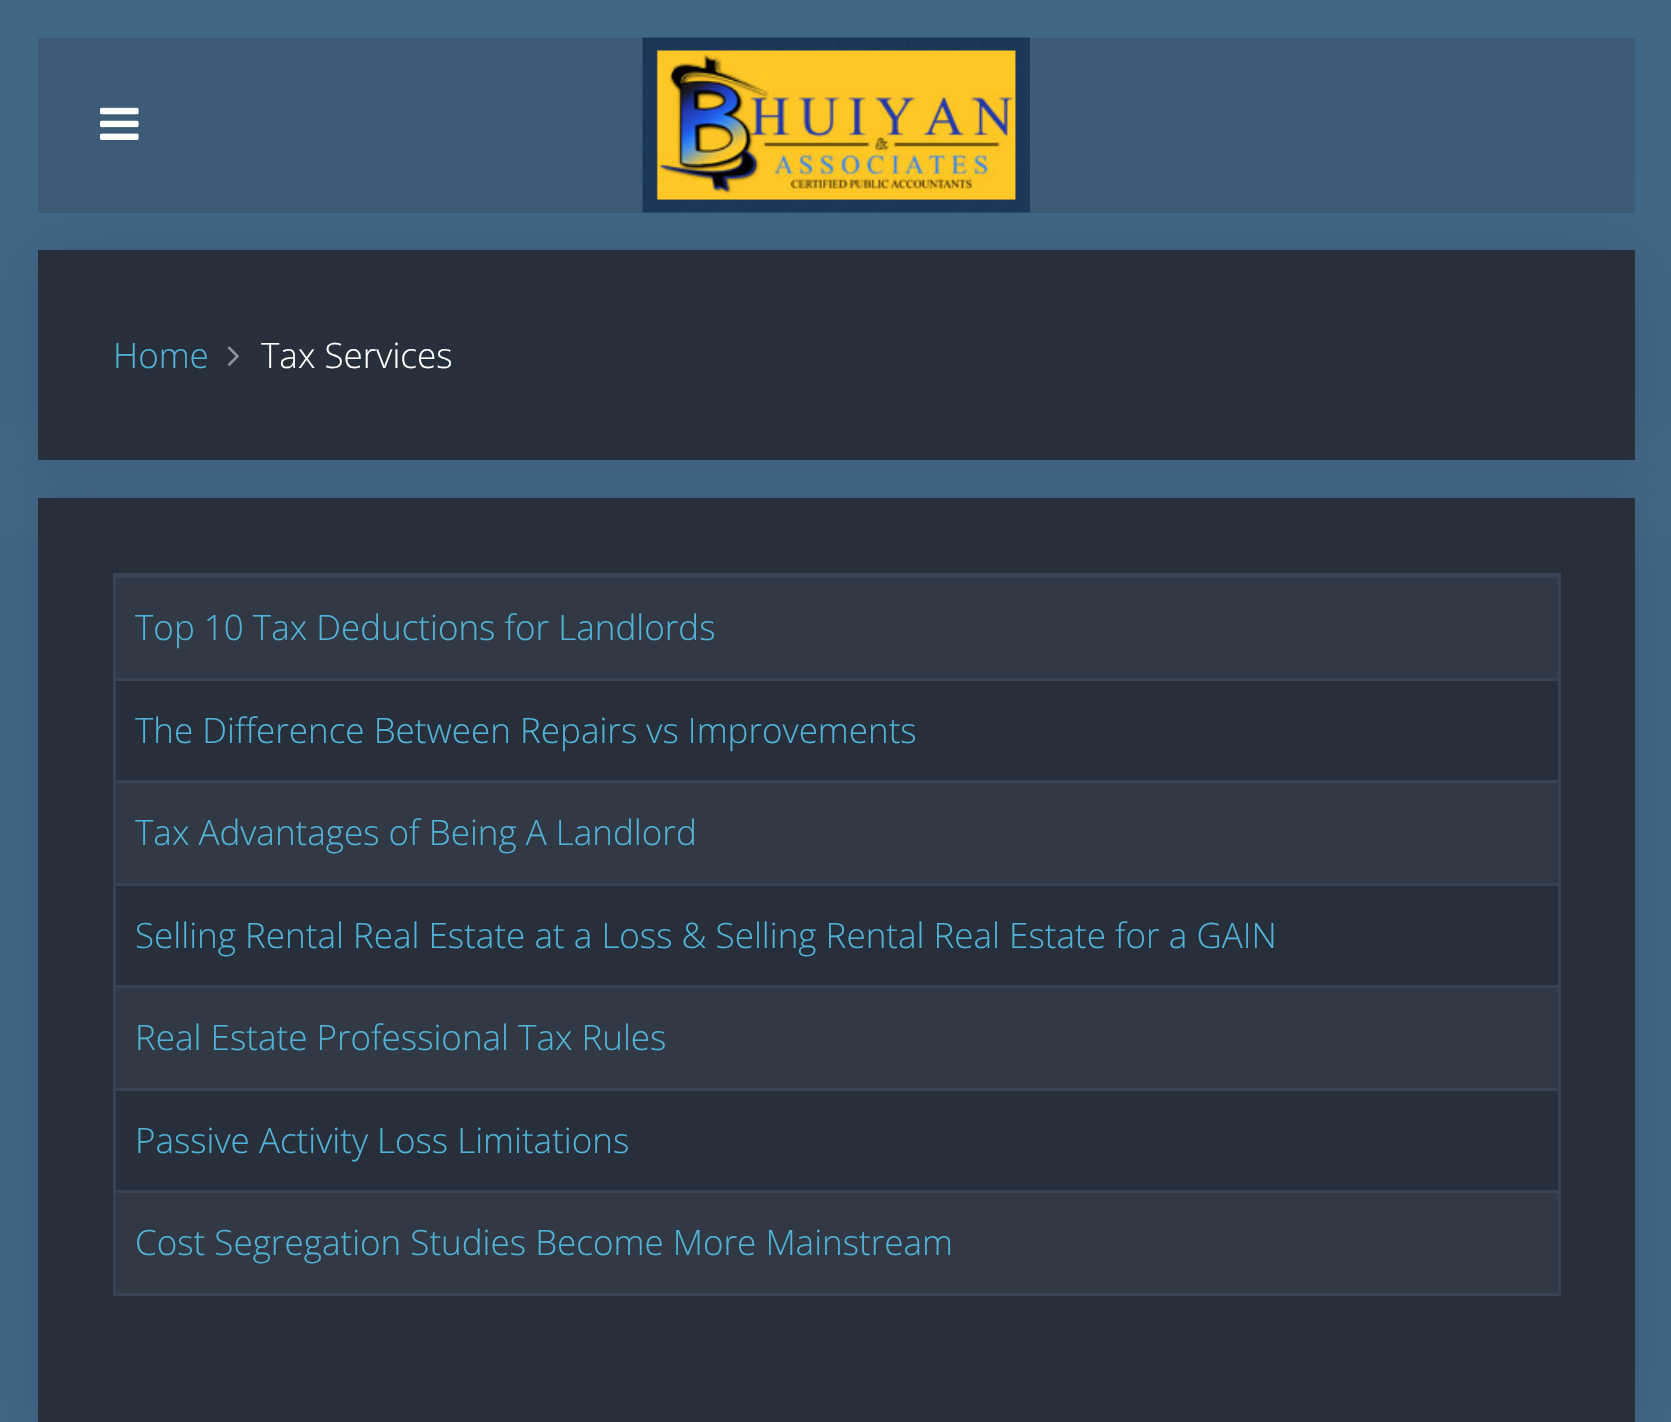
#include "include/core/SkBlurTypes.h"
#include "include/core/SkCanvas.h"
#include "include/core/SkData.h"
#include "include/core/SkFont.h"
#include "include/core/SkFontMgr.h"
#include "include/core/SkImage.h"
#include "include/core/SkMaskFilter.h"
#include "include/core/SkPaint.h"
#include "include/core/SkPathBuilder.h"
#include "include/core/SkTextBlob.h"
#include "include/effects/SkDashPathEffect.h"
#include "include/effects/SkGradientShader.h"
#include "include/utils/SkParsePath.h"

extern sk_sp<SkFontMgr> fontMgr;

static SkFont font(const char* family, int weight, float size, bool italic = false) {
    SkFontStyle style(weight, SkFontStyle::kNormal_Width,
        italic ? SkFontStyle::kItalic_Slant : SkFontStyle::kUpright_Slant);
    SkFont result(fontMgr->matchFamilyStyle(family, style), size);
    result.setSubpixel(true);
    return result;
}

static void drawLabel(SkCanvas* canvas, const char* s, float x, float y, const SkFont& font, SkColor color) {
    SkPaint ink(SkColor4f::FromColor(color));
    ink.setAntiAlias(true);
    canvas->drawString(s, x, y, font, ink);
}

static void fillRect(SkCanvas* canvas, float x, float y, float w, float h, SkColor color) {
    SkPaint ink(SkColor4f::FromColor(color));
    ink.setAntiAlias(true);
    canvas->drawRect(SkRect::MakeXYWH(x, y, w, h), ink);
}

static void drawPhoto(SkCanvas* canvas, const char* path, float x, float y, float w, float h) {
    auto image = SkImages::DeferredFromEncodedData(SkData::MakeFromFileName(path));
    canvas->drawImageRect(image, SkRect::MakeXYWH(x, y, w, h), SkSamplingOptions());
}

void draw(SkCanvas* canvas) {
    SkPaint paint;
    paint.setAntiAlias(true);
    canvas->clear(0xFF3F6685);
    paint.setColor(0x1F0A142D);
    paint.setMaskFilter(SkMaskFilter::MakeBlur(kNormal_SkBlurStyle, 31));
    canvas->drawRect(SkRect::MakeXYWH(38, 253, 1597, 210), paint);
    paint.setMaskFilter(nullptr);
    fillRect(canvas, 38, 38, 1597, 175, 0x402D3746);
    drawPhoto(canvas, "assets/img1.png", 100, 107, 39, 33);
    drawPhoto(canvas, "assets/img2.png", 642, 37, 388, 176);
    fillRect(canvas, 38, 250, 1597, 210, 0xFF262F3A);
    SkFont font1 = font("Open Sans", 300, 35);
    drawLabel(canvas, "Home", 113, 368, font1, 0xFF52B2D8);
    drawPhoto(canvas, "assets/img3.png", 227, 346, 12, 20);
    drawLabel(canvas, "Tax Services", 261, 368, font1, 0xFFFFFFFF);
    paint.setMaskFilter(SkMaskFilter::MakeBlur(kNormal_SkBlurStyle, 31));
    canvas->drawRect(SkRect::MakeXYWH(38, 500, 1597, 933), paint);
    paint.setMaskFilter(nullptr);
    fillRect(canvas, 38, 498, 1597, 924, 0xFF262F3A);
    fillRect(canvas, 113, 573, 1447, 2, 0xFF374352);
    fillRect(canvas, 1558, 573, 3, 722, 0xFF374352);
    fillRect(canvas, 113, 1293, 1447, 3, 0xFF374352);
    fillRect(canvas, 116, 578, 1442, 100, 0xFF313A44);
    fillRect(canvas, 113, 575, 1445, 3, 0xFF374352);
    fillRect(canvas, 113, 575, 3, 103, 0xFF374352);
    drawLabel(canvas, "Top 10 Tax Deductions for Landlords", 135, 640, font1, 0xFF52B2D8);
    fillRect(canvas, 113, 678, 1445, 3, 0xFF374352);
    fillRect(canvas, 113, 678, 3, 102, 0xFF374352);
    drawLabel(canvas, "The Difference Between Repairs vs Improvements", 135, 743, font1, 0xFF52B2D8);
    fillRect(canvas, 116, 783, 1442, 100, 0xFF313A44);
    fillRect(canvas, 113, 780, 1445, 3, 0xFF374352);
    fillRect(canvas, 113, 780, 3, 103, 0xFF374352);
    drawLabel(canvas, "Tax Advantages of Being A Landlord", 135, 845, font1, 0xFF52B2D8);
    fillRect(canvas, 113, 883, 1445, 3, 0xFF374352);
    fillRect(canvas, 113, 883, 3, 102, 0xFF374352);
    drawLabel(canvas, "Selling Rental Real Estate at a Loss & Selling Rental Real Estate for a GAIN", 135, 948, font1, 0xFF52B2D8);
    fillRect(canvas, 116, 988, 1442, 100, 0xFF313A44);
    fillRect(canvas, 113, 985, 1445, 3, 0xFF374352);
    fillRect(canvas, 113, 985, 3, 103, 0xFF374352);
    drawLabel(canvas, "Real Estate Professional Tax Rules", 135, 1050, font1, 0xFF52B2D8);
    fillRect(canvas, 113, 1088, 1445, 3, 0xFF374352);
    fillRect(canvas, 113, 1088, 3, 102, 0xFF374352);
    drawLabel(canvas, "Passive Activity Loss Limitations", 135, 1153, font1, 0xFF52B2D8);
    fillRect(canvas, 116, 1193, 1442, 100, 0xFF313A44);
    fillRect(canvas, 113, 1190, 1445, 3, 0xFF374352);
    fillRect(canvas, 113, 1190, 3, 103, 0xFF374352);
    drawLabel(canvas, "Cost Segregation Studies Become More Mainstream", 135, 1255, font1, 0xFF52B2D8);
}
